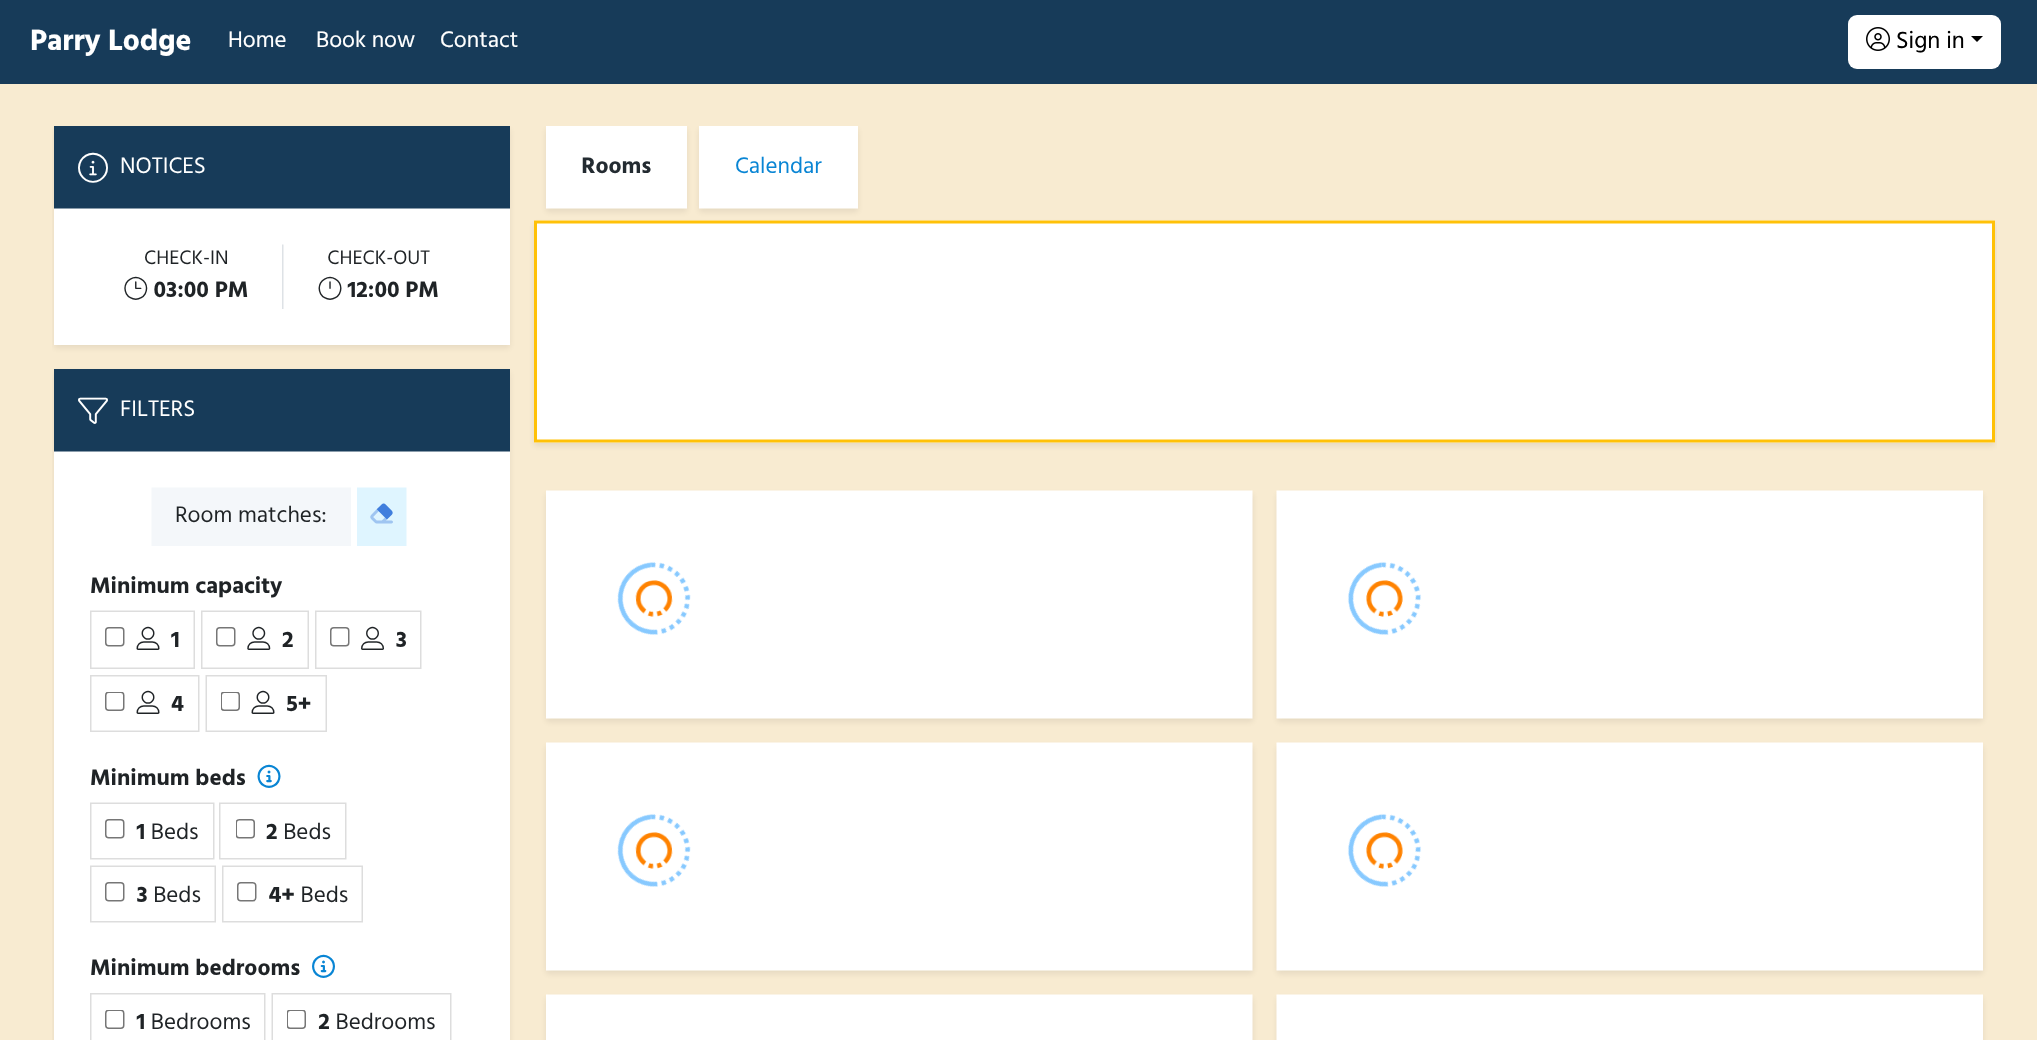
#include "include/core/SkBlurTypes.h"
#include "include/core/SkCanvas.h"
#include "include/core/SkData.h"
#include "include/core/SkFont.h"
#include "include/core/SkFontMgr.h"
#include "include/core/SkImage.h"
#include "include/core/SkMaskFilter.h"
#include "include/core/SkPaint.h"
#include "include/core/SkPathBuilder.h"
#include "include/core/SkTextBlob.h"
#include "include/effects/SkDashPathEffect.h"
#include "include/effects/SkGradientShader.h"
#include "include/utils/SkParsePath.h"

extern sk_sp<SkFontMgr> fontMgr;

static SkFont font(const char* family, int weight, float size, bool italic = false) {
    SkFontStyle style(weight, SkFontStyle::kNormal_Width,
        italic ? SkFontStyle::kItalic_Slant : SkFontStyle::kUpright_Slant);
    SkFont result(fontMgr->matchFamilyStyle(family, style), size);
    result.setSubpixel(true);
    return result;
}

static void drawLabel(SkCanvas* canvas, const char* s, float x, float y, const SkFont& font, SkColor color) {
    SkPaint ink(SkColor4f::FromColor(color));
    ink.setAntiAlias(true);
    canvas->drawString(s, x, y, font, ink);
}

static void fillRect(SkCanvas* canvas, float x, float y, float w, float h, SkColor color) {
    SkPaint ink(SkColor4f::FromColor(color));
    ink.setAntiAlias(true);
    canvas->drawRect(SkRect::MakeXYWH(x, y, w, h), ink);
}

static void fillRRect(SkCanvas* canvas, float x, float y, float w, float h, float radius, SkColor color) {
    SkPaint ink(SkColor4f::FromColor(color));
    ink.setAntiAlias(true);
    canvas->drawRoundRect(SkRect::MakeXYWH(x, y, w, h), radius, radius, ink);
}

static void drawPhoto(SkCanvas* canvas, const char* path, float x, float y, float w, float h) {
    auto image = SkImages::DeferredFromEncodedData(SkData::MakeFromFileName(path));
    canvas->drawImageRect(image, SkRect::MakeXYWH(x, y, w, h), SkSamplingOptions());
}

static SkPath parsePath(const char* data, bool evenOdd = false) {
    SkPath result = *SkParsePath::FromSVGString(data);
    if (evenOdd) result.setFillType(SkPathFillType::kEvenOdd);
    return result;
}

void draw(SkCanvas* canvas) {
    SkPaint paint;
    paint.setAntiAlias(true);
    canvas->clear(0xFFF8EBD1);
    fillRect(canvas, 0, 0, 2037, 84, 0xFF173B59);
    SkFont font1 = font("Hind", 700, 30);
    drawLabel(canvas, "Parry Lodge", 30, 50, font1, 0xFFFFFFFF);
    SkFont font2 = font("Hind", 400, 23);
    drawLabel(canvas, "Home", 228, 47, font2, 0xFFFFFFFF);
    drawLabel(canvas, "Book now", 316, 47, font2, 0xFFFFFFFF);
    drawLabel(canvas, "Contact", 440, 47, font2, 0xFFFFFFFF);
    fillRRect(canvas, 1848, 15, 153, 54, 9, 0xFFFFFFFF);
    drawPhoto(canvas, "assets/img1.png", 1866, 27, 24, 24);
    SkFont font3 = font("Hind", 400, 24);
    drawLabel(canvas, "Sign in", 1896, 48, font3, 0xFF000000);
    paint.setColor(0xFF000000);
    canvas->drawPath(parsePath("M1971 36H1983L1977 42Z"), paint);
    drawPhoto(canvas, "assets/img2.png", 52, 126, 1945, 914);
}
